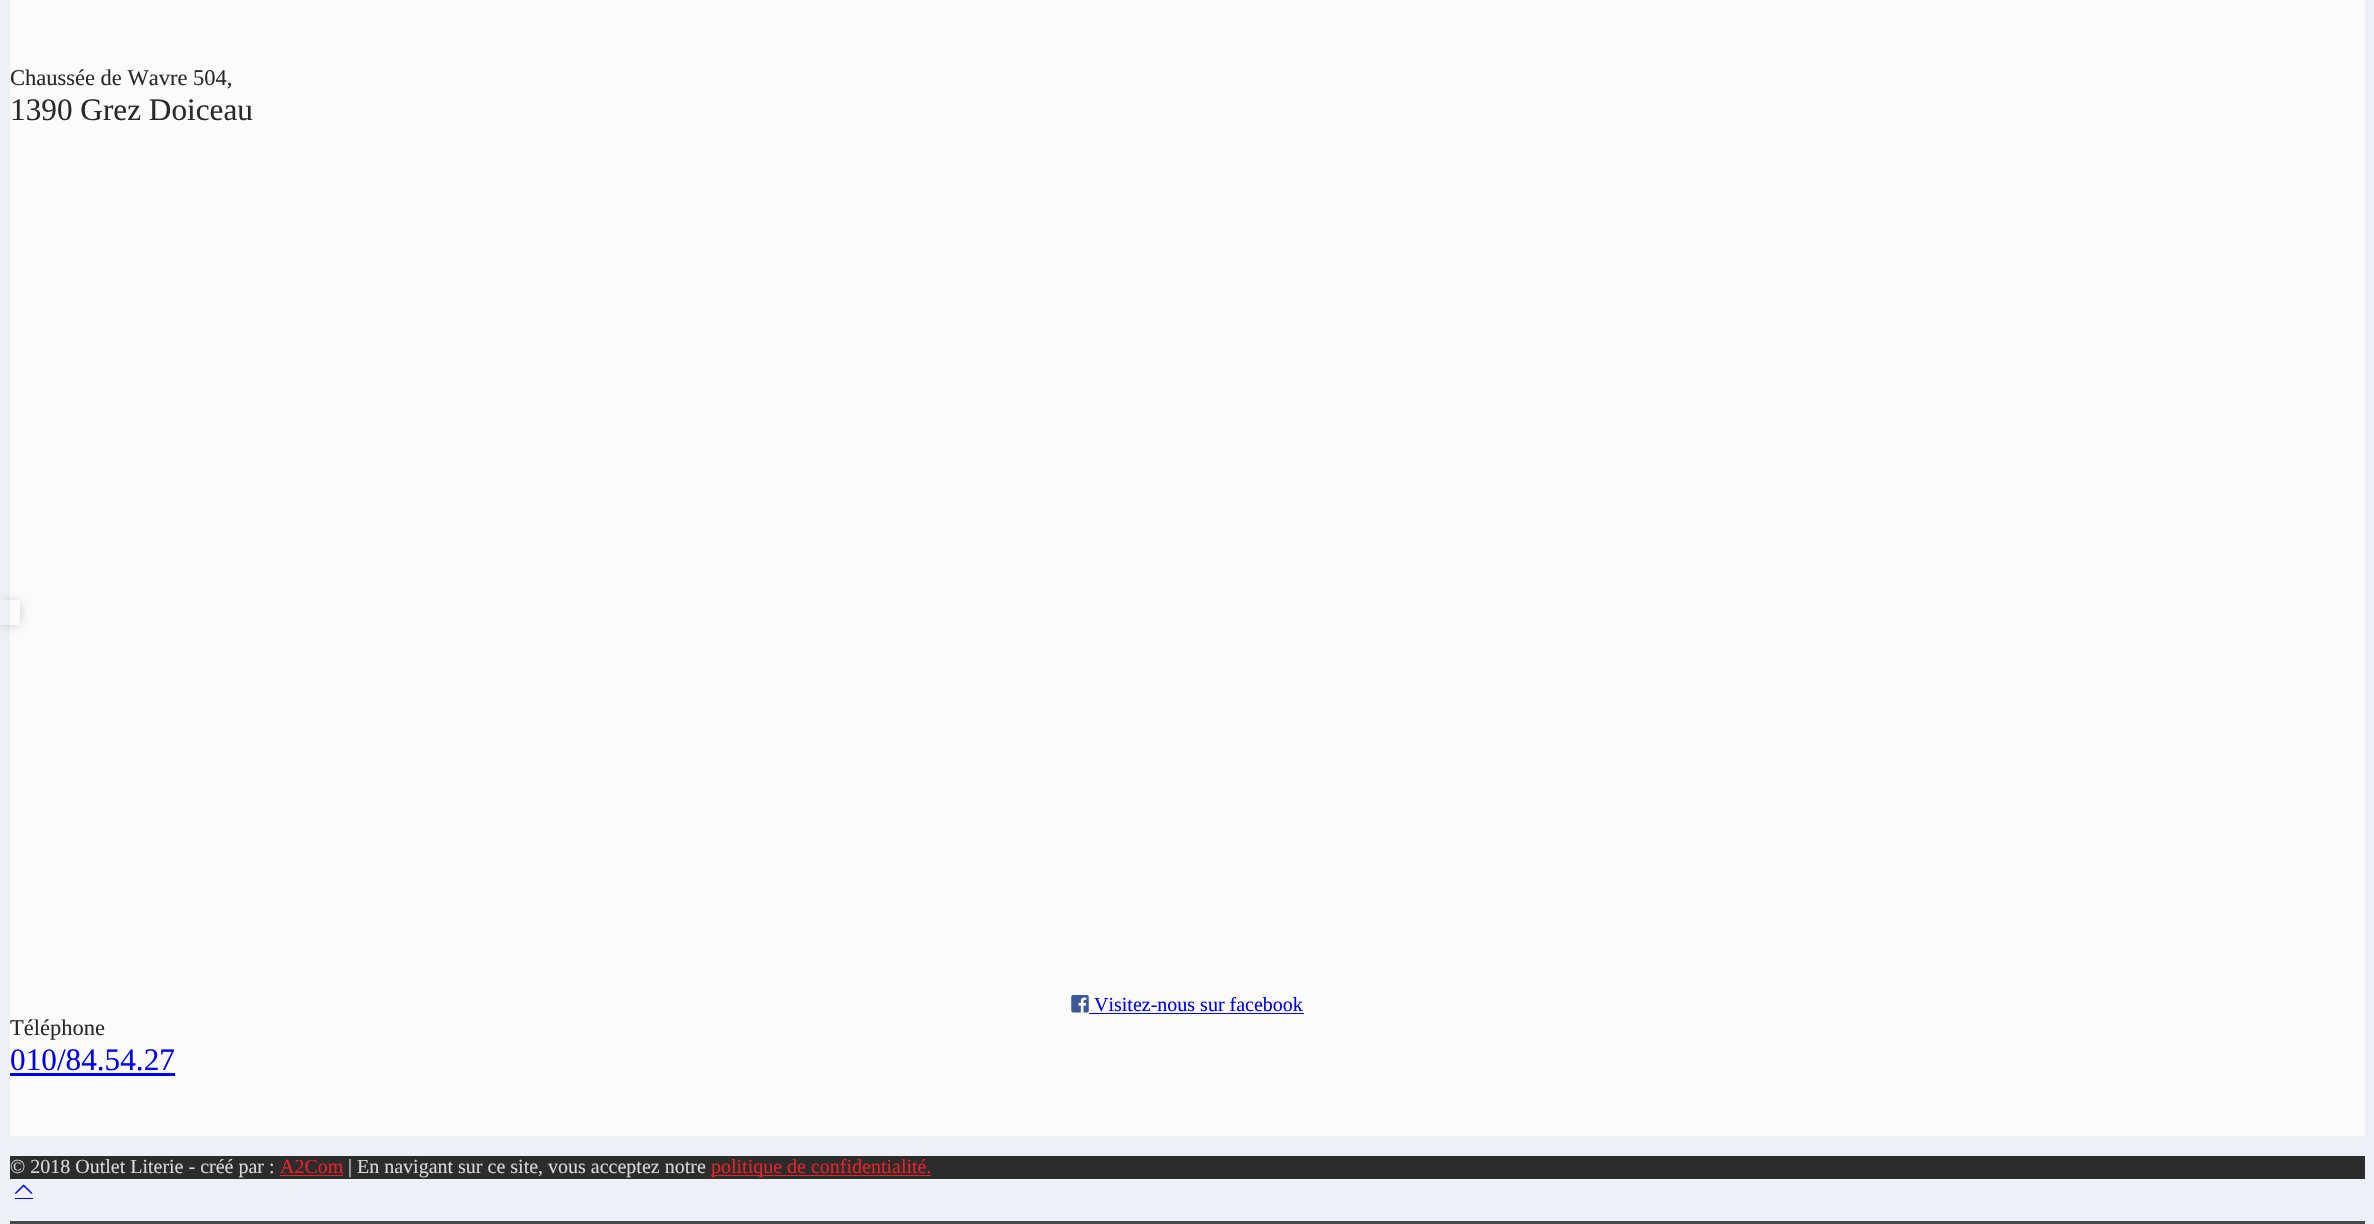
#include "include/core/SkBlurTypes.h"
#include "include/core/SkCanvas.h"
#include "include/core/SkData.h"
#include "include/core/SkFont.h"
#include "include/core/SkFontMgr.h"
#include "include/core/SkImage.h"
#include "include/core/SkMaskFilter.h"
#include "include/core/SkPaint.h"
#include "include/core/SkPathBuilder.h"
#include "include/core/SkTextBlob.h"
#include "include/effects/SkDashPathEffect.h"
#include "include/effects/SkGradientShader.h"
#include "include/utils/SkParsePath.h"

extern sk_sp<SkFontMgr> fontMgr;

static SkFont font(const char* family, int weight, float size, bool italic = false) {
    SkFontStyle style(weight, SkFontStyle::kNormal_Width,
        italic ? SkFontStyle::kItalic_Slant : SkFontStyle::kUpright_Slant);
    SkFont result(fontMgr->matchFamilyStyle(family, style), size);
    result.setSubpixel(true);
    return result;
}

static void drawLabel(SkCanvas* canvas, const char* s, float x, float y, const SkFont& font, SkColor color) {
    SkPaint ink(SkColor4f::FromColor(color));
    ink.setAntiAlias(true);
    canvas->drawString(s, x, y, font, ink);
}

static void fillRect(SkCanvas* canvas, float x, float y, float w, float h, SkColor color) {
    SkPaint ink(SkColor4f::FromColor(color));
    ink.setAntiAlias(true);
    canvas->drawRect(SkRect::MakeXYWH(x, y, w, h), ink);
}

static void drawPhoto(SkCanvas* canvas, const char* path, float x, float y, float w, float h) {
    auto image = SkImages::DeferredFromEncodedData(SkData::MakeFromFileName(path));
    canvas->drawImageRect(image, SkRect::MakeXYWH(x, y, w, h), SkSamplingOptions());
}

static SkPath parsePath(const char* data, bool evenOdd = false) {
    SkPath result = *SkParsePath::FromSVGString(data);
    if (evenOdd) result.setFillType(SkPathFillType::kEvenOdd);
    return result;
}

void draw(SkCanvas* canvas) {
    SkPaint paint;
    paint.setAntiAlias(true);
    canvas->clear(0xFFEDF0F4);
    fillRect(canvas, 10, 0, 2355, 1136, 0xFFFBFBFB);
    SkFont font1 = font("Liberation Serif", 400, 22.5f);
    drawLabel(canvas, "Chaussée de Wavre 504,", 10, 85, font1, 0xFF292929);
    SkFont font2 = font("Liberation Serif", 400, 31.25f);
    drawLabel(canvas, "1390 Grez Doiceau", 10, 120, font2, 0xFF292929);
    drawLabel(canvas, "Téléphone", 10, 1035, font1, 0xFF292929);
    drawLabel(canvas, "010/84.54.27", 10, 1070, font2, 0xFF0000EE);
    fillRect(canvas, 10, 1073, 165, 3, 0xFF0000EE);
    drawPhoto(canvas, "assets/img1.png", 1071, 995, 18, 18);
    SkFont font3 = font("Liberation Serif", 400, 20);
    drawLabel(canvas, "Visitez-nous sur facebook", 1094, 1011, font3, 0xFF0000EE);
    fillRect(canvas, 1089, 1013, 215, 1, 0xFF0000EE);
    fillRect(canvas, 10, 1156, 2355, 23, 0xFF2C2C2C);
    drawLabel(canvas, "© 2018 Outlet Literie - créé par :", 10, 1173, font3, 0xFFD7D7D7);
    drawLabel(canvas, "A2Com", 280, 1173, font3, 0xFFEC2128);
    fillRect(canvas, 280, 1175, 63, 1, 0xFFEC2128);
    drawLabel(canvas, "| En navigant sur ce site, vous acceptez notre", 348, 1173, font3, 0xFFD7D7D7);
    fillRect(canvas, 711, 1175, 220, 1, 0xFFEC2128);
    drawLabel(canvas, "politique de confidentialité.", 711, 1173, font3, 0xFFEC2128);
    canvas->save();
    canvas->clipPath(parsePath("M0 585H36V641H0ZM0 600H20V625H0Z", true), true);
    paint.setColor(0x4F000000);
    paint.setMaskFilter(SkMaskFilter::MakeBlur(kNormal_SkBlurStyle, 5.5f));
    canvas->drawRect(SkRect::MakeXYWH(3, 603, 15, 20), paint);
    paint.setMaskFilter(nullptr);
    canvas->restore();
    fillRect(canvas, 15, 1198, 18, 1, 0xFF0000EE);
    drawPhoto(canvas, "assets/img2.png", 15, 1184, 18, 10);
    fillRect(canvas, 10, 1221, 2355, 3, 0xFF49494A);
}
